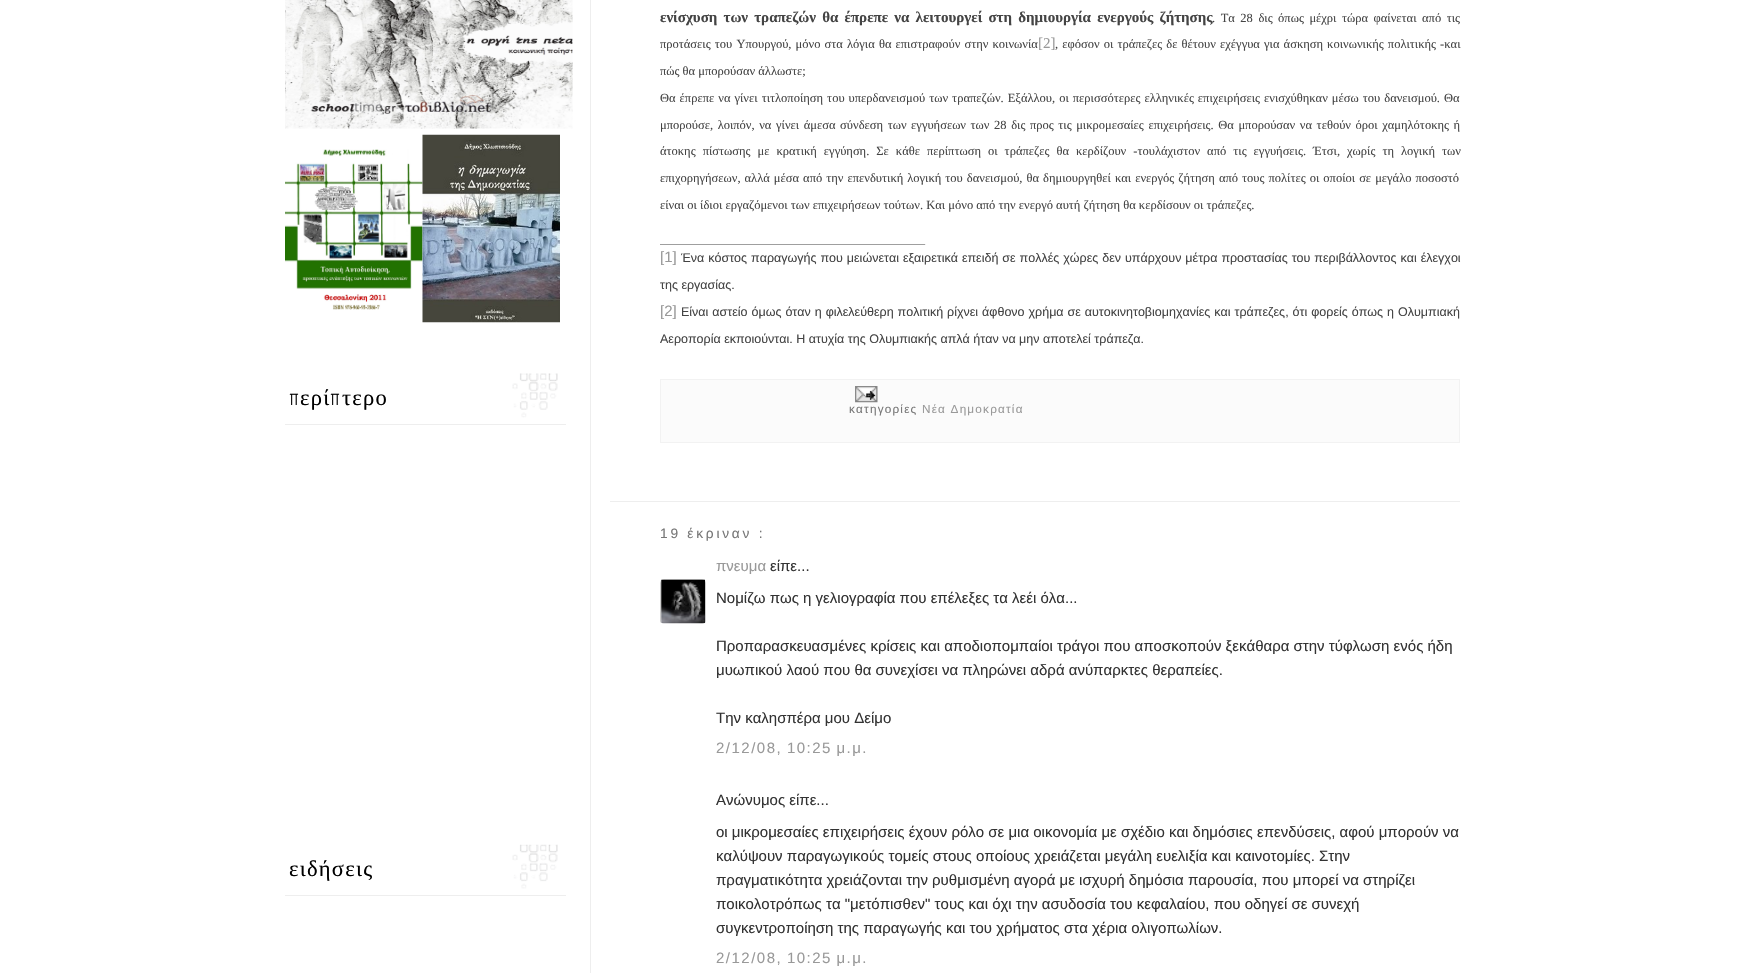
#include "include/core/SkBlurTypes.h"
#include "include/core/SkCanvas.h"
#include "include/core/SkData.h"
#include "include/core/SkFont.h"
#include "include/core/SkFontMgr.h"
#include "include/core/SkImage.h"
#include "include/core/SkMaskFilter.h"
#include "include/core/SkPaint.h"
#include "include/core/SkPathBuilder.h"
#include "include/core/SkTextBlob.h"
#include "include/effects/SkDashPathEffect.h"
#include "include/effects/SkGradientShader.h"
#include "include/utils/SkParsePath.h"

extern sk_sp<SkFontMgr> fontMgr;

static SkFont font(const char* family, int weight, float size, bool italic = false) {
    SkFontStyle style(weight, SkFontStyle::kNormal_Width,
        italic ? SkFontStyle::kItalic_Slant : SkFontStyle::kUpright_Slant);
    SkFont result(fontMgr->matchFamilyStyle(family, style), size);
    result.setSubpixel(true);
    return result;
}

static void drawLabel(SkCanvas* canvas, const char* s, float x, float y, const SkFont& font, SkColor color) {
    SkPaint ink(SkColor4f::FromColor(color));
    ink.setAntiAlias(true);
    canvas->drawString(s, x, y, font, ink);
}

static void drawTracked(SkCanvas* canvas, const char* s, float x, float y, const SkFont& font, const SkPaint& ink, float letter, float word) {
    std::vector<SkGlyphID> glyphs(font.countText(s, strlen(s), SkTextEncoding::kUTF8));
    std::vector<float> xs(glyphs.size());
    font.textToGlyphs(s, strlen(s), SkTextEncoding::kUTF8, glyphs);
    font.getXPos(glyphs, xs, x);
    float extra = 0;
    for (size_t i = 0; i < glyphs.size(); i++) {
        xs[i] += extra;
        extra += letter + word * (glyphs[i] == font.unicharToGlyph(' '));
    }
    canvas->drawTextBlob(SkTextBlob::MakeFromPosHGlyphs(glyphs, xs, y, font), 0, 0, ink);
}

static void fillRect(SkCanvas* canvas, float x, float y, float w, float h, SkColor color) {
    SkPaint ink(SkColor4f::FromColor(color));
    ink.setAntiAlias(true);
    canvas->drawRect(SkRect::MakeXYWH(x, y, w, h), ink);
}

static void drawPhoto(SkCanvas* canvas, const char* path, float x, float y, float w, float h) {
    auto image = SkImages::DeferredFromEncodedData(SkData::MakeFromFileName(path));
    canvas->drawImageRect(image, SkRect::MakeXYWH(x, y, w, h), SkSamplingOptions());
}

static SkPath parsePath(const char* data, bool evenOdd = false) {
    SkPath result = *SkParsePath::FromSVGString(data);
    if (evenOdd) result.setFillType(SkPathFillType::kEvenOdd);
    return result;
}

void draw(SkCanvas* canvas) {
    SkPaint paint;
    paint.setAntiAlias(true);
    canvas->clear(0xFFFFFFFF);
    drawPhoto(canvas, "assets/img1.png", 285, 0, 288, 129);
    drawPhoto(canvas, "assets/img2.png", 285, 149, 138, 161);
    drawPhoto(canvas, "assets/img3.png", 422, 134, 138, 189);
    drawPhoto(canvas, "assets/img4.png", 512, 373, 46, 45);
    fillRect(canvas, 285, 424, 281, 1, 0xFFEEEEEE);
    SkFont font1 = font("Yanone Kaffeesatz", 200, 22.5f);
    paint.setColor(0xFF000000);
    drawTracked(canvas, "π", 289, 405, font1, paint, 1.25f, 0);
    SkFont font2 = font("Liberation Serif", 400, 22.5f);
    drawTracked(canvas, "ερί", 300, 405, font2, paint, 1.25f, 0);
    drawTracked(canvas, "π", 330, 405, font1, paint, 1.25f, 0);
    drawTracked(canvas, "τερο", 342, 405, font2, paint, 1.25f, 0);
    drawPhoto(canvas, "assets/img5.png", 512, 844, 46, 45);
    fillRect(canvas, 285, 895, 281, 1, 0xFFEEEEEE);
    drawTracked(canvas, "ειδήσεις", 289, 876, font2, paint, 1.25f, 0);
    fillRect(canvas, 590, 0, 1, 973, 0xFFEEEEEE);
    fillRect(canvas, 610, 501, 850, 1, 0xFFEEEEEE);
    SkFont font3 = font("Liberation Serif", 700, 15);
    paint.setColor(0xFF444444);
    drawTracked(canvas, "ενίσχυση των τραπεζών θα έπρεπε να λειτουργεί στη δημιουργία ενεργούς ζήτησης", 660, 22, font3, paint, 0, 2.4f);
    SkFont font4 = font("Liberation Serif", 400, 12.5f);
    drawTracked(canvas, ". Τα 28 δις όπως μέχρι τώρα φαίνεται από τις", 1212, 22, font4, paint, 0, 2.4f);
    drawTracked(canvas, "προτάσεις του Υπουργού, μόνο στα λόγια θα επιστραφούν στην κοινωνία", 660, 48, font4, paint, 0, 1);
    SkFont font5 = font("Liberation Serif", 400, 15);
    drawLabel(canvas, "[2]", 1038, 48, font5, 0xFF999999);
    drawTracked(canvas, ", εφόσον οι τράπεζες δε θέτουν εχέγγυα για άσκηση κοινωνικής πολιτικής -και", 1055, 48, font4, paint, 0, 1);
    drawLabel(canvas, "πώς θα μπορούσαν άλλωστε;", 660, 75, font4, 0xFF444444);
    drawTracked(canvas, "Θα έπρεπε να γίνει τιτλοποίηση του υπερδανεισμού των τραπεζών. Εξάλλου, οι περισσότερες ελληνικές επιχειρήσεις ενισχύθηκαν μέσω του δανεισμού. Θα", 660, 102, font4, paint, 0, 0.9f);
    drawTracked(canvas, "μπορούσε, λοιπόν, να γίνει άμεσα σύνδεση των εγγυήσεων των 28 δις προς τις μικρομεσαίες επιχειρήσεις. Θα μπορούσαν να τεθούν όροι χαμηλότοκης ή", 660, 129, font4, paint, 0, 1.45f);
    drawTracked(canvas, "άτοκης πίστωσης με κρατική εγγύηση. Σε κάθε περίπτωση οι τράπεζες θα κερδίζουν -τουλάχιστον από τις εγγυήσεις. Έτσι, χωρίς τη λογική των", 660, 155, font4, paint, 0, 3.9f);
    drawTracked(canvas, "επιχορηγήσεων, αλλά μέσα από την επενδυτική λογική του δανεισμού, θα δημιουργηθεί και ενεργός ζήτηση από τους πολίτες οι οποίοι σε μεγάλο ποσοστό", 660, 182, font4, paint, 0, 0.9f);
    drawLabel(canvas, "είναι οι ίδιοι εργαζόμενοι των επιχειρήσεων τούτων. Και μόνο από την ενεργό αυτή ζήτηση θα κερδίσουν οι τράπεζες.", 660, 209, font4, 0xFF444444);
    fillRect(canvas, 660, 244, 266, 1, 0xFF9F9F9F);
    fillRect(canvas, 925, 244, 1, 1, 0xFFEEEEEE);
    SkFont font6 = font("Liberation Sans", 400, 15);
    drawLabel(canvas, "[1]", 660, 262, font6, 0xFF999999);
    SkFont font7 = font("Liberation Sans", 400, 12.5f);
    drawTracked(canvas, "Ένα κόστος παραγωγής που μειώνεται εξαιρετικά επειδή σε πολλές χώρες δεν υπάρχουν μέτρα προστασίας του περιβάλλοντος και έλεγχοι", 681, 262, font7, paint, 0, 0.5f);
    drawLabel(canvas, "της εργασίας.", 660, 289, font7, 0xFF444444);
    drawLabel(canvas, "[2]", 660, 316, font6, 0xFF999999);
    drawTracked(canvas, "Είναι αστείο όμως όταν η φιλελεύθερη πολιτική ρίχνει άφθονο χρήμα σε αυτοκινητοβιομηχανίες και τράπεζες, ότι φορείς όπως η Ολυμπιακή", 681, 316, font7, paint, 0, 0.5f);
    drawLabel(canvas, "Αεροπορία εκποιούνται. Η ατυχία της Ολυμπιακής απλά ήταν να μην αποτελεί τράπεζα.", 660, 343, font7, 0xFF444444);
    paint.setColor(0xFFFBFBFB);
    canvas->drawRect(SkRect::MakeXYWH(660.5f, 379.5f, 799, 63), paint);
    paint.setStroke(true);
    paint.setStrokeWidth(1);
    paint.setColor(0xFFF2F2F2);
    canvas->drawRect(SkRect::MakeXYWH(660.5f, 379.5f, 799, 63), paint);
    drawPhoto(canvas, "assets/img6.png", 855, 386, 23, 17);
    SkFont font8 = font("Liberation Sans", 400, 11.75f);
    paint.setStroke(false);
    paint.setColor(0xFF777777);
    drawTracked(canvas, "κατηγορίες", 849, 413, font8, paint, 1.2f, 0);
    paint.setColor(0xFF999999);
    drawTracked(canvas, "Νέα Δημοκρατία", 922, 413, font8, paint, 1.2f, 0);
    SkFont font9 = font("Liberation Sans", 400, 13.75f);
    paint.setColor(0xFF777777);
    drawTracked(canvas, "19 έκριναν :", 660, 538, font9, paint, 2.75f, 0);
    drawLabel(canvas, "πνευμα", 716, 571, font6, 0xFF999999);
    drawLabel(canvas, "είπε...", 770, 571, font6, 0xFF333333);
    paint.setColor(0xFFCCCCCC);
    canvas->drawPath(parsePath("M660 583V620C660 621 660 622 661 623V580ZM664 579L661 580H705L702 579ZM706 583L705 580V623C706 622 706 621 706 620Z", true), paint);
    drawPhoto(canvas, "assets/img7.png", 661, 579, 44, 45);
    drawLabel(canvas, "Νομίζω πως η γελιογραφία που επέλεξες τα λεέι όλα...", 716, 603, font6, 0xFF333333);
    drawLabel(canvas, "Προπαρασκευασμένες κρίσεις και αποδιοπομπαίοι τράγοι που αποσκοπούν ξεκάθαρα στην τύφλωση ενός ήδη", 716, 651, font6, 0xFF333333);
    drawLabel(canvas, "μυωπικού λαού που θα συνεχίσει να πληρώνει αδρά ανύπαρκτες θεραπείες.", 716, 675, font6, 0xFF333333);
    drawLabel(canvas, "Την καλησπέρα μου Δείμο", 716, 723, font6, 0xFF333333);
    paint.setColor(0xFF999999);
    drawTracked(canvas, "2/12/08, 10:25 μ.μ.", 716, 753, font6, paint, 1.5f, -1);
    drawLabel(canvas, "Ανώνυμος είπε...", 716, 805, font6, 0xFF333333);
    drawLabel(canvas, "οι μικρομεσαίες επιχειρήσεις έχουν ρόλο σε μια οικονομία με σχέδιο και δημόσιες επενδύσεις, αφού μπορούν να", 716, 837, font6, 0xFF333333);
    drawLabel(canvas, "καλύψουν παραγωγικούς τομείς στους οποίους χρειάζεται μεγάλη ευελιξία και καινοτομίες. Στην", 716, 861, font6, 0xFF333333);
    drawLabel(canvas, "πραγματικότητα χρειάζονται την ρυθμισμένη αγορά με ισχυρή δημόσια παρουσία, που μπορεί να στηρίζει", 716, 885, font6, 0xFF333333);
    drawLabel(canvas, "ποικολοτρόπως τα \"μετόπισθεν\" τους και όχι την ασυδοσία του κεφαλαίου, που οδηγεί σε συνεχή", 716, 909, font6, 0xFF333333);
    drawLabel(canvas, "συγκεντροποίηση της παραγωγής και του χρήματος στα χέρια ολιγοπωλίων.", 716, 933, font6, 0xFF333333);
    drawTracked(canvas, "2/12/08, 10:25 μ.μ.", 716, 963, font6, paint, 1.5f, -1);
}
